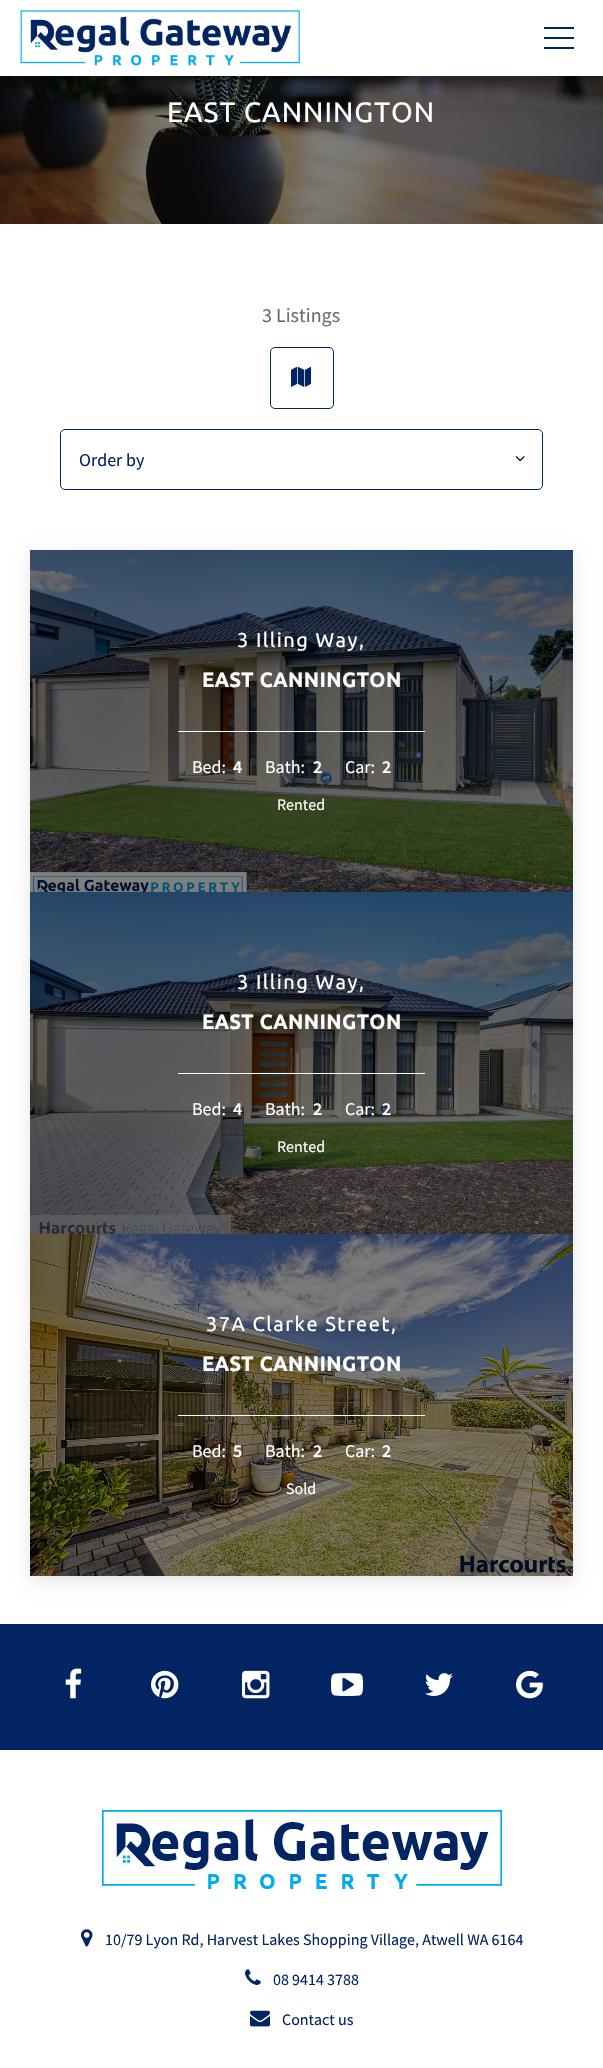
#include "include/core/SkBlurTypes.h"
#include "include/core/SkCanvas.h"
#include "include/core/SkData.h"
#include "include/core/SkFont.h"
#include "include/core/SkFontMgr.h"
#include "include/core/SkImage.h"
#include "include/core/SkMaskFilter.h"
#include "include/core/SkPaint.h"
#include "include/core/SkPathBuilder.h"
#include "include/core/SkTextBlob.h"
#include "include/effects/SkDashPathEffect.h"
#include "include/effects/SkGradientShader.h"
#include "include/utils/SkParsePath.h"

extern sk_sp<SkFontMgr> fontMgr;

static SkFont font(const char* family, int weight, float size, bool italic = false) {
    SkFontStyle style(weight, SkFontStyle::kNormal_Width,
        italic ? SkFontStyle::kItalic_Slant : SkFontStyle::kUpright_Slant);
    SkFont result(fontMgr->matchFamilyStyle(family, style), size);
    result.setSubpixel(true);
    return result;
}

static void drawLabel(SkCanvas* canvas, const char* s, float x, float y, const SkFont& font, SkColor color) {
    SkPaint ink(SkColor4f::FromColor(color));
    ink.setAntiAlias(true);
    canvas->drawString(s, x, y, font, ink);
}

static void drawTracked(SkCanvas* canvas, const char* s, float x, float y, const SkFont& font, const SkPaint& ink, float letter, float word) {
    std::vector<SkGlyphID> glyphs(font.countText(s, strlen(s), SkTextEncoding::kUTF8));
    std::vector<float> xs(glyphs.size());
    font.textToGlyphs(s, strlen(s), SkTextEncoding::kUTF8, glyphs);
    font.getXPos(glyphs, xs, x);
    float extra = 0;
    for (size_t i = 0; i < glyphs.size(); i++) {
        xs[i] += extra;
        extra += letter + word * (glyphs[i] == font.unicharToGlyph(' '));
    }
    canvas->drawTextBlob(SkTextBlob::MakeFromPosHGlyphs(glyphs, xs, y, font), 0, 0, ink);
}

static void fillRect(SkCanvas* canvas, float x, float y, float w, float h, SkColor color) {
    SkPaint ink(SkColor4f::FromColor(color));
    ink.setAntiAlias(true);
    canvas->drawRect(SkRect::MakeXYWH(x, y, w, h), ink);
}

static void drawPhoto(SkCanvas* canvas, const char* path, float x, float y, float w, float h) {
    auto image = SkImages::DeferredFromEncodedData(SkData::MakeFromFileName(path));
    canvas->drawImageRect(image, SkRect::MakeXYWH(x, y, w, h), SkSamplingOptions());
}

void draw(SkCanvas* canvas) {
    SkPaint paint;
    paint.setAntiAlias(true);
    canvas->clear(0xFFFFFFFF);
    drawPhoto(canvas, "assets/img2.png", 0, 76, 603, 148);
    paint.setColor(0x66000000);
    paint.setMaskFilter(SkMaskFilter::MakeBlur(kNormal_SkBlurStyle, 4));
    canvas->drawRect(SkRect::MakeXYWH(0, 6, 603, 76), paint);
    paint.setMaskFilter(nullptr);
    fillRect(canvas, 0, 0, 603, 76, 0xFFFFFFFF);
    drawPhoto(canvas, "assets/img1.png", 20, 10, 280, 56);
    fillRect(canvas, 544, 27, 30, 2, 0xFF012463);
    fillRect(canvas, 544, 37, 30, 2, 0xFF012463);
    fillRect(canvas, 544, 47, 30, 2, 0xFF012463);
    SkFont font1 = font("Ubuntu", 400, 28);
    paint.setColor(0xFFFFFFFF);
    drawTracked(canvas, "EAST CANNINGTON", 167, 122, font1, paint, 1, 0);
    SkFont font2 = font("Source Sans Pro", 400, 20);
    drawLabel(canvas, "3 Listings", 262, 322, font2, 0xFF6B6A6A);
    paint.setStroke(true);
    paint.setStrokeWidth(1);
    paint.setColor(0xFF012463);
    canvas->drawRoundRect(SkRect::MakeXYWH(270.5f, 347.5f, 63, 61), 4.5f, 4.5f, paint);
    drawPhoto(canvas, "assets/img3.png", 291, 366, 20, 21);
    canvas->drawRoundRect(SkRect::MakeXYWH(60.5f, 429.5f, 482, 60), 4.5f, 4.5f, paint);
    SkFont font3 = font("Source Sans Pro", 400, 18);
    drawLabel(canvas, "Order by", 79, 466, font3, 0xFF012463);
    drawPhoto(canvas, "assets/img4.png", 515, 456, 10, 6);
    paint.setStroke(false);
    paint.setColor(0x1A000000);
    paint.setMaskFilter(SkMaskFilter::MakeBlur(kNormal_SkBlurStyle, 7.5f));
    canvas->drawRect(SkRect::MakeXYWH(30, 555, 543, 342), paint);
    paint.setMaskFilter(nullptr);
    fillRect(canvas, 30, 550, 543, 342, 0xFF000000);
    drawPhoto(canvas, "assets/img5.png", 30, 550, 543, 342);
    SkFont font4 = font("Ubuntu", 400, 20);
    paint.setColor(0xFFFFFFFF);
    drawTracked(canvas, "3 Illing Way,", 237, 647, font4, paint, 1.5f, 0);
    SkFont font5 = font("Ubuntu", 700, 20);
    drawTracked(canvas, "EAST CANNINGTON", 202, 687, font5, paint, 1, 0);
    fillRect(canvas, 178, 731, 247, 1, 0xFFFFFFFF);
    drawLabel(canvas, "Bed:", 192, 773, font3, 0xFFFFFFFF);
    SkFont font6 = font("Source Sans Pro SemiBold", 600, 18);
    drawLabel(canvas, "4", 233, 773, font6, 0xFFFFFFFF);
    drawLabel(canvas, "Bath:", 265, 773, font3, 0xFFFFFFFF);
    drawLabel(canvas, "2", 313, 773, font6, 0xFFFFFFFF);
    drawLabel(canvas, "Car:", 345, 773, font3, 0xFFFFFFFF);
    drawLabel(canvas, "2", 382, 773, font6, 0xFFFFFFFF);
    SkFont font7 = font("Source Sans Pro", 400, 16);
    drawLabel(canvas, "Rented", 277, 810, font7, 0xFFFFFFFF);
    paint.setColor(0x1A000000);
    paint.setMaskFilter(SkMaskFilter::MakeBlur(kNormal_SkBlurStyle, 7.5f));
    canvas->drawRect(SkRect::MakeXYWH(30, 897, 543, 342), paint);
    paint.setMaskFilter(nullptr);
    fillRect(canvas, 30, 892, 543, 342, 0xFF000000);
    drawPhoto(canvas, "assets/img6.png", 30, 892, 543, 342);
    paint.setColor(0xFFFFFFFF);
    drawTracked(canvas, "3 Illing Way,", 237, 989, font4, paint, 1.5f, 0);
    drawTracked(canvas, "EAST CANNINGTON", 202, 1029, font5, paint, 1, 0);
    fillRect(canvas, 178, 1073, 247, 1, 0xFFFFFFFF);
    drawLabel(canvas, "Bed:", 192, 1115, font3, 0xFFFFFFFF);
    drawLabel(canvas, "4", 233, 1115, font6, 0xFFFFFFFF);
    drawLabel(canvas, "Bath:", 265, 1115, font3, 0xFFFFFFFF);
    drawLabel(canvas, "2", 313, 1115, font6, 0xFFFFFFFF);
    drawLabel(canvas, "Car:", 345, 1115, font3, 0xFFFFFFFF);
    drawLabel(canvas, "2", 382, 1115, font6, 0xFFFFFFFF);
    drawLabel(canvas, "Rented", 277, 1152, font7, 0xFFFFFFFF);
    paint.setColor(0x1A000000);
    paint.setMaskFilter(SkMaskFilter::MakeBlur(kNormal_SkBlurStyle, 7.5f));
    canvas->drawRect(SkRect::MakeXYWH(30, 1239, 543, 342), paint);
    paint.setMaskFilter(nullptr);
    fillRect(canvas, 30, 1234, 543, 342, 0xFF000000);
    drawPhoto(canvas, "assets/img7.png", 30, 1234, 543, 342);
    paint.setColor(0xFFFFFFFF);
    drawTracked(canvas, "37A Clarke Street,", 206, 1331, font4, paint, 1.5f, 0);
    drawTracked(canvas, "EAST CANNINGTON", 202, 1371, font5, paint, 1, 0);
    fillRect(canvas, 178, 1415, 247, 1, 0xFFFFFFFF);
    drawLabel(canvas, "Bed:", 192, 1457, font3, 0xFFFFFFFF);
    drawLabel(canvas, "5", 233, 1457, font6, 0xFFFFFFFF);
    drawLabel(canvas, "Bath:", 265, 1457, font3, 0xFFFFFFFF);
    drawLabel(canvas, "2", 313, 1457, font6, 0xFFFFFFFF);
    drawLabel(canvas, "Car:", 345, 1457, font3, 0xFFFFFFFF);
    drawLabel(canvas, "2", 382, 1457, font6, 0xFFFFFFFF);
    drawLabel(canvas, "Sold", 286, 1494, font7, 0xFFFFFFFF);
    fillRect(canvas, 0, 1624, 603, 126, 0xFF012463);
    drawPhoto(canvas, "assets/img8.png", 65, 1668, 17, 31);
    drawPhoto(canvas, "assets/img9.png", 151, 1670, 28, 29);
    drawPhoto(canvas, "assets/img10.png", 242, 1670, 28, 29);
    drawPhoto(canvas, "assets/img11.png", 331, 1673, 32, 23);
    drawPhoto(canvas, "assets/img12.png", 425, 1673, 28, 23);
    drawPhoto(canvas, "assets/img13.png", 516, 1670, 27, 29);
    drawPhoto(canvas, "assets/img14.png", 102, 1810, 400, 79);
    drawPhoto(canvas, "assets/img15.png", 81, 1929, 12, 18);
    drawLabel(canvas, "10/79 Lyon Rd, Harvest Lakes Shopping Village, Atwell WA 6164", 105, 1945, font7, 0xFF012463);
    drawPhoto(canvas, "assets/img16.png", 245, 1969, 16, 16);
    drawLabel(canvas, "08 9414 3788", 273, 1985, font7, 0xFF012463);
    drawPhoto(canvas, "assets/img17.png", 250, 2010, 20, 17);
    drawLabel(canvas, "Contact us", 282, 2025, font7, 0xFF012463);
}
